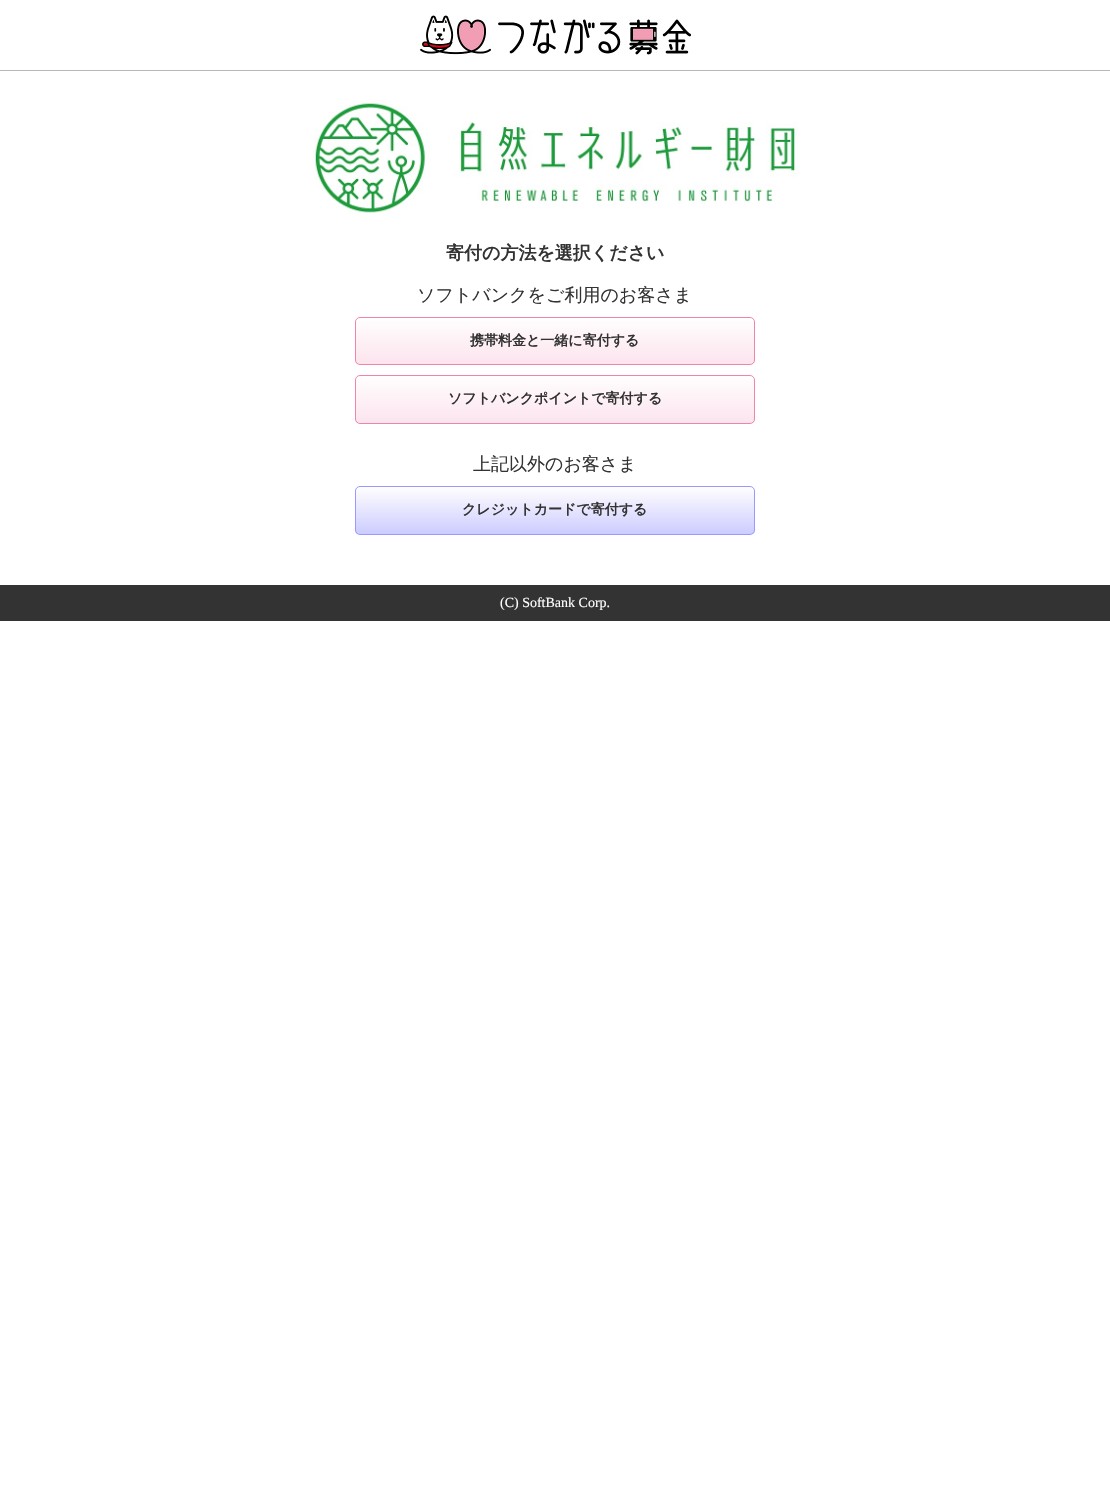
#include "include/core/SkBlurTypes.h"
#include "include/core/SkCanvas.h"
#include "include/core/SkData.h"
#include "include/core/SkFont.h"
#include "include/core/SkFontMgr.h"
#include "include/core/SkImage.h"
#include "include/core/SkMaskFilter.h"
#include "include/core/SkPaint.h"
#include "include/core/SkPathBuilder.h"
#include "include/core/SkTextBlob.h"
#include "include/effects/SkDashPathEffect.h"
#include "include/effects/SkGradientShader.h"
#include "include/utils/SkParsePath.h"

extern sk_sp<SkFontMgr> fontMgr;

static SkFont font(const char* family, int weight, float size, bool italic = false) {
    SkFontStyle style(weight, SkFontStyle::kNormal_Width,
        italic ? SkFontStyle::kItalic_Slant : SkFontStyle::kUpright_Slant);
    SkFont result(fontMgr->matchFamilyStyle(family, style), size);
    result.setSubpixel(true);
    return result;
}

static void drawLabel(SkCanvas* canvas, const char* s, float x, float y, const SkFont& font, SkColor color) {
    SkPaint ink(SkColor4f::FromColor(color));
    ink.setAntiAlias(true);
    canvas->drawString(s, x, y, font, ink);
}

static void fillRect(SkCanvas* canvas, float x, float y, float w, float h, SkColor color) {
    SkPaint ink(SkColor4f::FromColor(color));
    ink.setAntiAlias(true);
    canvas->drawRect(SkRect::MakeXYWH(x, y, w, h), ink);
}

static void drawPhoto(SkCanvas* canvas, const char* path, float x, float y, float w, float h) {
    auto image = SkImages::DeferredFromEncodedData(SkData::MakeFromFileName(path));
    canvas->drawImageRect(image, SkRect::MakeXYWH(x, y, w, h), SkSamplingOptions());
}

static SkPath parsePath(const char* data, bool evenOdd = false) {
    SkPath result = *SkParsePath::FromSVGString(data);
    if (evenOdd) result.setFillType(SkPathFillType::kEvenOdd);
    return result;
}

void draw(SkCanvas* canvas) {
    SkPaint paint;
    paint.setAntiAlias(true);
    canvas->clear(0xFFFFFFFF);
    fillRect(canvas, 0, 70, 1110, 1, 0xFFB8B8B8);
    drawPhoto(canvas, "assets/img1.png", 420, 15, 271, 40);
    drawPhoto(canvas, "assets/img2.png", 314, 100, 484, 113);
    SkFont font1 = font("WenQuanYi Zen Hei", 700, 18);
    drawLabel(canvas, "寄付の方法を選択ください", 446, 259, font1, 0xFF333333);
    SkFont font2 = font("WenQuanYi Zen Hei", 500, 18);
    drawLabel(canvas, "ソフトバンクをご利用のお客さま", 417, 301, font2, 0xFF333333);
    canvas->save();
    canvas->clipPath(parsePath("M360 317H750C753 317 755 319 755 322V360C755 363 753 365 750 365H360C357 365 355 363 355 360V322C355 319 357 317 360 317Z"), true);
    {
        const SkColor colors[] = {0xFFFFFEFE, 0xFFFCE4EE};
        const float stops[] = {0, 1};
        const SkPoint ends[] = {{555, 318}, {555, 364}};
        paint.setShader(SkGradientShader::MakeLinear(ends, colors, stops, 2, SkTileMode::kClamp));
        paint.setAlpha(255);
    }
    canvas->drawRect(SkRect::MakeXYWH(355, 318, 400, 46), paint);
    canvas->restore();
    paint.setStroke(true);
    paint.setStrokeWidth(1);
    paint.setShader(nullptr);
    paint.setColor(0xFFEE86A7);
    canvas->drawRoundRect(SkRect::MakeXYWH(355.5f, 317.5f, 399, 47), 4.5f, 4.5f, paint);
    SkFont font3 = font("WenQuanYi Zen Hei", 700, 14);
    drawLabel(canvas, "携帯料金と一緒に寄付する", 470, 345, font3, 0xFF333333);
    canvas->save();
    canvas->clipPath(parsePath("M360 375H750C753 375 755 377 755 380V419C755 422 753 424 750 424H360C357 424 355 422 355 419V380C355 377 357 375 360 375Z"), true);
    paint.setStroke(false);
    {
        const SkColor colors[] = {0xFFFFFEFE, 0xFFFCE4EE};
        const float stops[] = {0, 1};
        const SkPoint ends[] = {{555, 376}, {555, 423}};
        paint.setShader(SkGradientShader::MakeLinear(ends, colors, stops, 2, SkTileMode::kClamp));
        paint.setAlpha(255);
    }
    canvas->drawRect(SkRect::MakeXYWH(355, 376, 400, 47), paint);
    canvas->restore();
    paint.setStroke(true);
    paint.setShader(nullptr);
    paint.setColor(0xFFEE86A7);
    canvas->drawRoundRect(SkRect::MakeXYWH(355.5f, 375.5f, 399, 48), 4.5f, 4.5f, paint);
    drawLabel(canvas, "ソフトバンクポイントで寄付する", 448, 403, font3, 0xFF333333);
    drawLabel(canvas, "上記以外のお客さま", 473, 470, font2, 0xFF333333);
    canvas->save();
    canvas->clipPath(parsePath("M360 486H750C753 486 755 488 755 491V530C755 533 753 535 750 535H360C357 535 355 533 355 530V491C355 488 357 486 360 486Z"), true);
    paint.setStroke(false);
    {
        const SkColor colors[] = {0xFFFFFEFE, 0xFFCCCCFF};
        const float stops[] = {0, 1};
        const SkPoint ends[] = {{555, 487}, {555, 534}};
        paint.setShader(SkGradientShader::MakeLinear(ends, colors, stops, 2, SkTileMode::kClamp));
        paint.setAlpha(255);
    }
    canvas->drawRect(SkRect::MakeXYWH(355, 487, 400, 47), paint);
    canvas->restore();
    paint.setStroke(true);
    paint.setShader(nullptr);
    paint.setColor(0xFF9999FF);
    canvas->drawRoundRect(SkRect::MakeXYWH(355.5f, 486.5f, 399, 48), 4.5f, 4.5f, paint);
    drawLabel(canvas, "クレジットカードで寄付する", 462, 514, font3, 0xFF333333);
    fillRect(canvas, 0, 585, 1110, 36, 0xFF333333);
    SkFont font4 = font("Liberation Serif", 400, 14);
    drawLabel(canvas, "(C) SoftBank Corp.", 500, 607, font4, 0xFFFFFFFF);
}
